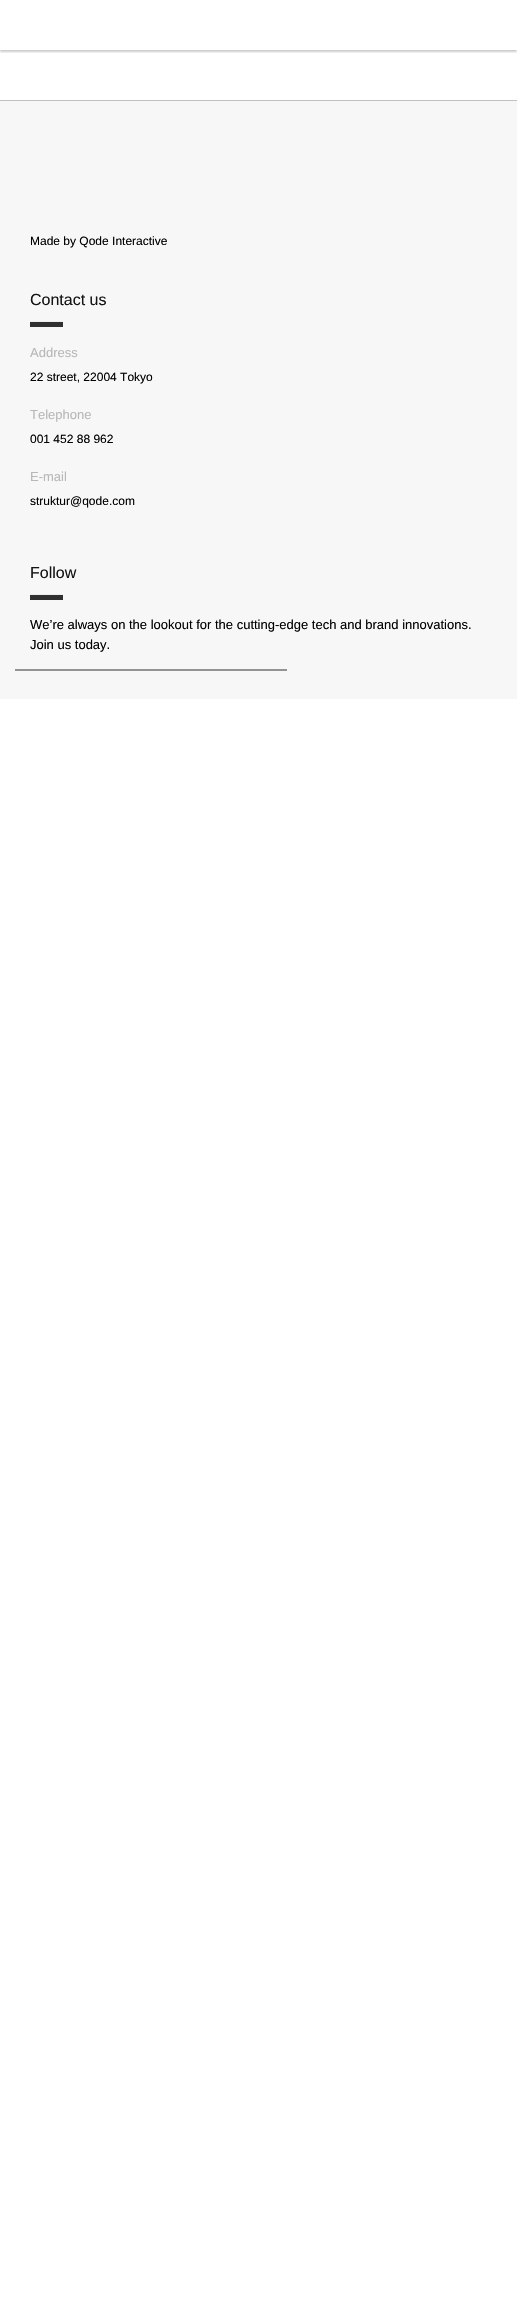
#include "include/core/SkBlurTypes.h"
#include "include/core/SkCanvas.h"
#include "include/core/SkData.h"
#include "include/core/SkFont.h"
#include "include/core/SkFontMgr.h"
#include "include/core/SkImage.h"
#include "include/core/SkMaskFilter.h"
#include "include/core/SkPaint.h"
#include "include/core/SkPathBuilder.h"
#include "include/core/SkTextBlob.h"
#include "include/effects/SkDashPathEffect.h"
#include "include/effects/SkGradientShader.h"
#include "include/utils/SkParsePath.h"

extern sk_sp<SkFontMgr> fontMgr;

static SkFont font(const char* family, int weight, float size, bool italic = false) {
    SkFontStyle style(weight, SkFontStyle::kNormal_Width,
        italic ? SkFontStyle::kItalic_Slant : SkFontStyle::kUpright_Slant);
    SkFont result(fontMgr->matchFamilyStyle(family, style), size);
    result.setSubpixel(true);
    return result;
}

static void drawLabel(SkCanvas* canvas, const char* s, float x, float y, const SkFont& font, SkColor color) {
    SkPaint ink(SkColor4f::FromColor(color));
    ink.setAntiAlias(true);
    canvas->drawString(s, x, y, font, ink);
}

static void fillRect(SkCanvas* canvas, float x, float y, float w, float h, SkColor color) {
    SkPaint ink(SkColor4f::FromColor(color));
    ink.setAntiAlias(true);
    canvas->drawRect(SkRect::MakeXYWH(x, y, w, h), ink);
}

void draw(SkCanvas* canvas) {
    SkPaint paint;
    paint.setAntiAlias(true);
    canvas->clear(0xFFFFFFFF);
    canvas->save();
    canvas->clipRect(SkRect::MakeXYWH(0, 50, 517, 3));
    paint.setColor(0x33000000);
    paint.setMaskFilter(SkMaskFilter::MakeBlur(kNormal_SkBlurStyle, 1));
    canvas->drawRect(SkRect::MakeXYWH(0, 2, 517, 50), paint);
    paint.setMaskFilter(nullptr);
    canvas->restore();
    fillRect(canvas, 0, 101, 517, 598, 0xFFF7F7F7);
    fillRect(canvas, 0, 100, 517, 1, 0xFFC0C0C0);
    SkFont font1 = font("Liberation Sans", 400, 12);
    drawLabel(canvas, "Made by Qode Interactive", 30, 245, font1, 0xFF000000);
    SkFont font2 = font("Liberation Sans", 400, 16);
    drawLabel(canvas, "Contact us", 30, 305, font2, 0xFF141414);
    fillRect(canvas, 30, 322, 33, 5, 0xFF303030);
    fillRect(canvas, 30, 321, 33, 1, 0xFFEEEEEE);
    SkFont font3 = font("Liberation Sans", 400, 13);
    drawLabel(canvas, "Address", 30, 357, font3, 0xFFB8B8B8);
    drawLabel(canvas, "22 street, 22004 Tokyo", 30, 381, font1, 0xFF000000);
    drawLabel(canvas, "Telephone", 30, 419, font3, 0xFFB8B8B8);
    drawLabel(canvas, "001 452 88 962", 30, 443, font1, 0xFF000000);
    drawLabel(canvas, "E-mail", 30, 481, font3, 0xFFB8B8B8);
    drawLabel(canvas, "struktur@qode.com", 30, 505, font1, 0xFF000000);
    drawLabel(canvas, "Follow", 30, 578, font2, 0xFF141414);
    fillRect(canvas, 30, 595, 33, 5, 0xFF303030);
    fillRect(canvas, 30, 594, 33, 1, 0xFFEEEEEE);
    drawLabel(canvas, "We’re always on the lookout for the cutting-edge tech and brand innovations.", 30, 629, font3, 0xFF000000);
    drawLabel(canvas, "Join us today.", 30, 649, font3, 0xFF000000);
    fillRect(canvas, 15, 669, 272, 2, 0xFF939393);
}
